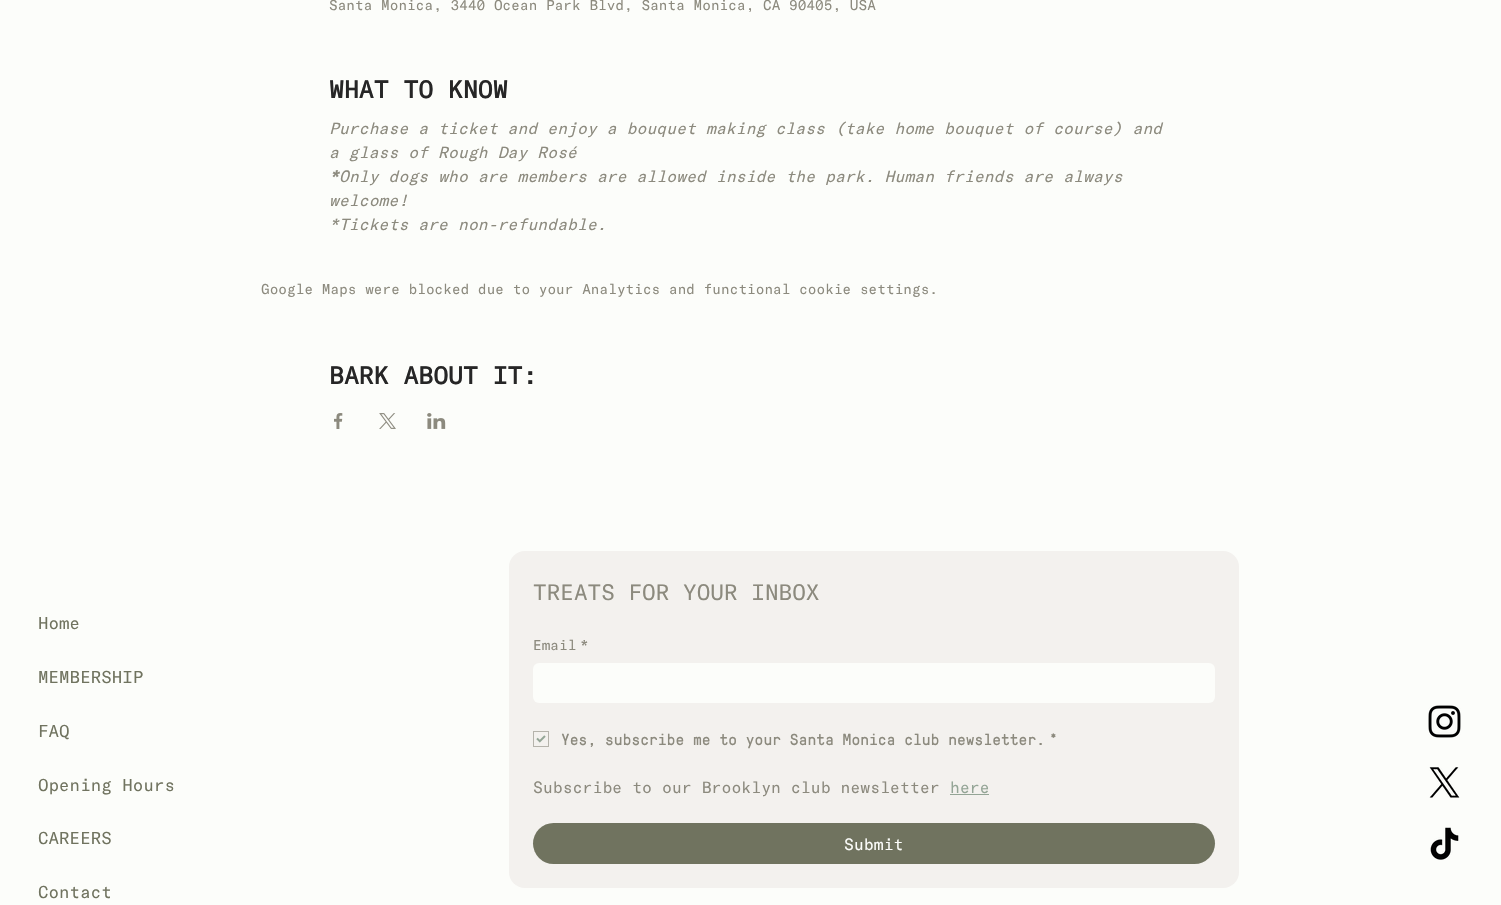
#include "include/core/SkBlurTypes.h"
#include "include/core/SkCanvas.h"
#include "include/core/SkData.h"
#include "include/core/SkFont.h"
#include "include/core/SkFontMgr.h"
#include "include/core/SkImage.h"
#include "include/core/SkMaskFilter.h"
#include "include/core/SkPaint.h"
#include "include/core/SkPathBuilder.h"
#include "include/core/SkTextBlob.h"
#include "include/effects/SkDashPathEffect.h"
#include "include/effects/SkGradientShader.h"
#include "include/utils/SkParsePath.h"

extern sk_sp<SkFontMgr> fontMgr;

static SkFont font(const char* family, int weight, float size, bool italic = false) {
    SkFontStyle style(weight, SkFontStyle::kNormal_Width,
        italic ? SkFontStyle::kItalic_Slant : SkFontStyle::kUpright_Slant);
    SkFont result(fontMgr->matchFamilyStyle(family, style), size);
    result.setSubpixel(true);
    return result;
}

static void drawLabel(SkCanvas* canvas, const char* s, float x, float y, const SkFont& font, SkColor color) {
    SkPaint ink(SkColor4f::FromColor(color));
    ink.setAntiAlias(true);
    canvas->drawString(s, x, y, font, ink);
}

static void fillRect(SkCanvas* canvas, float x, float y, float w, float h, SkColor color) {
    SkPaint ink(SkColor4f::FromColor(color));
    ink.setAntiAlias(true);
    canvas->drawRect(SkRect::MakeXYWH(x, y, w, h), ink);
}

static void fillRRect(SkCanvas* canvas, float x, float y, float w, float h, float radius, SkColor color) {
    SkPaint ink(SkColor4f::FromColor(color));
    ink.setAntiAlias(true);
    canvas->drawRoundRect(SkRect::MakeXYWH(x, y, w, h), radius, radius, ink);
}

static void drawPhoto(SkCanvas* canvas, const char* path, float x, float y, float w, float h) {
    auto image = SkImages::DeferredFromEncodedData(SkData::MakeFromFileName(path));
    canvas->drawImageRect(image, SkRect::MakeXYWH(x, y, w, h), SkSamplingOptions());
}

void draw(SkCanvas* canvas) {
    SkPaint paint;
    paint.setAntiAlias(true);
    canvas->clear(0xFFFCFDFA);
    SkFont font1 = font("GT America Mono", 400, 14);
    drawLabel(canvas, "Santa Monica, 3440 Ocean Park Blvd, Santa Monica, CA 90405, USA", 329, 10, font1, 0xFF8C8A7E);
    SkFont font2 = font("GT America Mono", 700, 24);
    drawLabel(canvas, "WHAT TO KNOW", 329, 98, font2, 0xFF262626);
    SkFont font3 = font("GT America Mono", 400, 16, true);
    drawLabel(canvas, "Purchase a ticket and enjoy a bouquet making class (take home bouquet of course) and", 329, 134, font3, 0xFF8C8A7E);
    drawLabel(canvas, "a glass of Rough Day Rosé", 329, 158, font3, 0xFF8C8A7E);
    SkFont font4 = font("GT America Mono", 700, 16, true);
    drawLabel(canvas, "*", 329, 182, font4, 0xFF8C8A7E);
    drawLabel(canvas, "Only dogs who are members are allowed inside the park. Human friends are always", 339, 182, font3, 0xFF8C8A7E);
    drawLabel(canvas, "welcome!", 329, 206, font3, 0xFF8C8A7E);
    drawLabel(canvas, "*Tickets are non-refundable.", 329, 230, font3, 0xFF8C8A7E);
    drawLabel(canvas, "Google Maps were blocked due to your Analytics and functional cookie settings.", 261, 294, font1, 0xFF8C8A7E);
    drawLabel(canvas, "BARK ABOUT IT:", 329, 384, font2, 0xFF262626);
    drawPhoto(canvas, "assets/img1.png", 334, 413, 9, 16);
    drawPhoto(canvas, "assets/img2.png", 379, 413, 17, 16);
    drawPhoto(canvas, "assets/img3.png", 427, 413, 19, 16);
    SkFont font5 = font("GT America Mono", 400, 17);
    drawLabel(canvas, "Home", 38, 629, font5, 0xFF70735F);
    drawLabel(canvas, "MEMBERSHIP", 38, 683, font5, 0xFF70735F);
    drawLabel(canvas, "FAQ", 38, 737, font5, 0xFF70735F);
    drawLabel(canvas, "Opening Hours", 38, 791, font5, 0xFF70735F);
    drawLabel(canvas, "CAREERS", 38, 844, font5, 0xFF70735F);
    drawLabel(canvas, "Contact", 38, 898, font5, 0xFF70735F);
    fillRRect(canvas, 509, 551, 730, 337, 16, 0xFFF3F1EE);
    SkFont font6 = font("GT America Mono", 400, 22);
    drawLabel(canvas, "TREATS FOR YOUR INBOX", 533, 600, font6, 0xFF8C8A7E);
    drawLabel(canvas, "Email", 533, 650, font1, 0xFF8C8A7E);
    drawLabel(canvas, "*", 580, 650, font1, 0xFF8C8A7E);
    fillRRect(canvas, 533, 663, 682, 40, 6, 0xFFFCFDFA);
    paint.setStroke(true);
    paint.setStrokeWidth(1);
    paint.setColor(0xFFB5B3AB);
    canvas->drawRect(SkRect::MakeXYWH(533.5f, 731.5f, 15, 15), paint);
    drawPhoto(canvas, "assets/img4.png", 536, 735, 10, 8);
    SkFont font7 = font("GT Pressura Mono", 400, 16);
    drawLabel(canvas, "Yes, subscribe me to your Santa Monica club newsletter.", 561, 745, font7, 0xFF8C8A7E);
    drawLabel(canvas, "*", 1049, 745, font7, 0xFF8C8A7E);
    SkFont font8 = font("GT America Mono", 400, 16);
    drawLabel(canvas, "Subscribe to our Brooklyn club newsletter", 533, 793, font8, 0xFF8C8A7E);
    drawLabel(canvas, "here", 950, 793, font8, 0xFF94A596);
    fillRect(canvas, 950, 794, 39, 1, 0xFF94A596);
    fillRRect(canvas, 533, 823, 682, 41, 20.5f, 0xFF70735F);
    drawLabel(canvas, "Submit", 844, 850, font8, 0xFFFCFDFA);
    drawPhoto(canvas, "assets/img5.png", 1428, 705, 33, 33);
    drawPhoto(canvas, "assets/img6.png", 1429, 767, 31, 31);
    drawPhoto(canvas, "assets/img7.png", 1430, 827, 29, 33);
}
